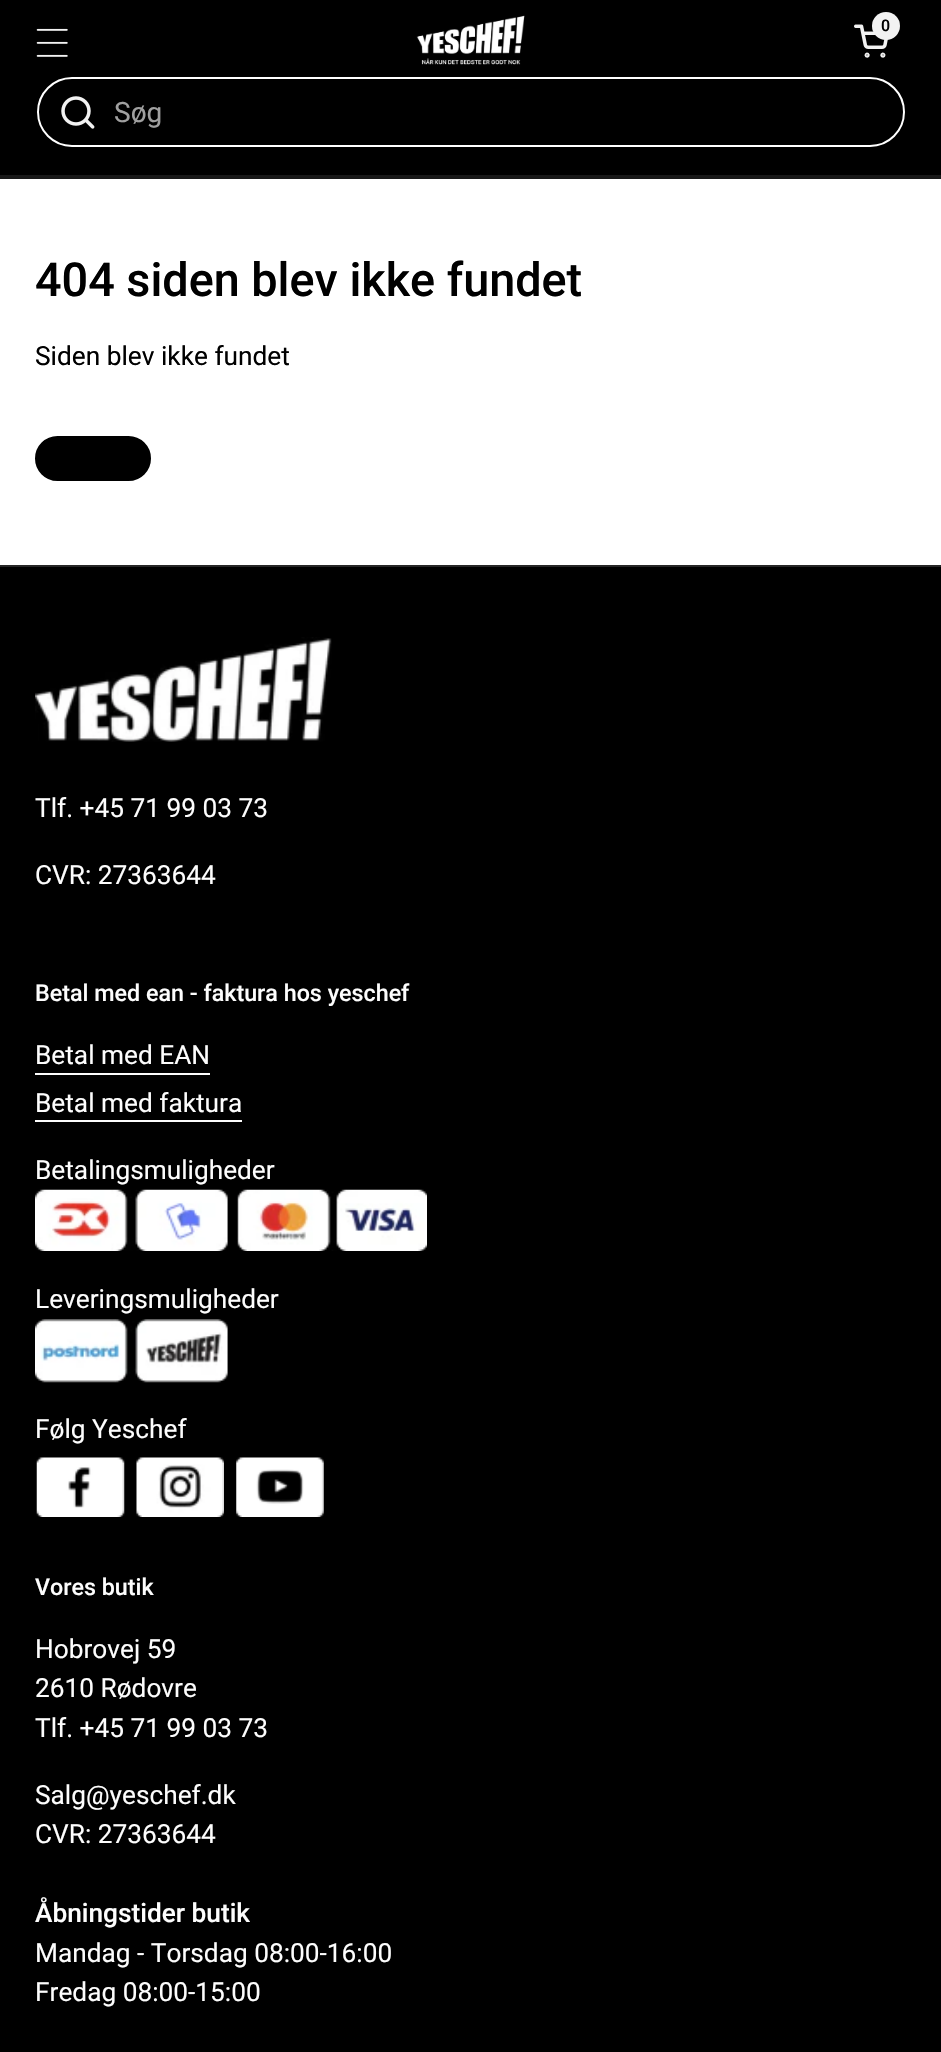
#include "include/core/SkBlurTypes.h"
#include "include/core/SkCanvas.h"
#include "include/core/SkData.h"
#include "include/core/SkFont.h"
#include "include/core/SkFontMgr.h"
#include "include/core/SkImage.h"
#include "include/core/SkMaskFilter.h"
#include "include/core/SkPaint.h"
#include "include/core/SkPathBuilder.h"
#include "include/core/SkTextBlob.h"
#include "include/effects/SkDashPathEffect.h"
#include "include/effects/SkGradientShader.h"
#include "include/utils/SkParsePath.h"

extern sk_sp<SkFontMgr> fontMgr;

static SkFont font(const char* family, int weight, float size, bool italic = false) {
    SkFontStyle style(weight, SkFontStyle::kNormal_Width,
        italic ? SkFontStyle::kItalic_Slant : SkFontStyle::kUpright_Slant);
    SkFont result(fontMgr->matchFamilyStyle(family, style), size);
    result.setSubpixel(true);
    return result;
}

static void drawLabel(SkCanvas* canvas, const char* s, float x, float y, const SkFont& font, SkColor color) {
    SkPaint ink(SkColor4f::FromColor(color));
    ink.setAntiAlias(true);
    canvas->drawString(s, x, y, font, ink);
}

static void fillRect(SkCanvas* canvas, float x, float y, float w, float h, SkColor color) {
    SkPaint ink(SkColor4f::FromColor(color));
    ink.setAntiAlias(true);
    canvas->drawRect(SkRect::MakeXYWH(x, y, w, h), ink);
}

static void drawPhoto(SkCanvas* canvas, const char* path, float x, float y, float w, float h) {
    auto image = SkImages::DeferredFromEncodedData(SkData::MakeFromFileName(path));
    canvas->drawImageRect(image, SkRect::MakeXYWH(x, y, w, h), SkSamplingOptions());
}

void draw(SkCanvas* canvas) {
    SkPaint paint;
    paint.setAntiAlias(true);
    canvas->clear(0xFFFFFFFF);
    fillRect(canvas, 0, 0, 941, 175, 0xFF000000);
    drawPhoto(canvas, "assets/img1.png", 416, 15, 109, 50);
    drawPhoto(canvas, "assets/img2.png", 854, 24, 34, 34);
    paint.setColor(0xFFF2F2F2);
    canvas->drawCircle(886, 26, 14, paint);
    SkFont font1 = font("Roboto", 500, 16);
    drawLabel(canvas, "0", 881, 31, font1, 0xFF000000);
    drawPhoto(canvas, "assets/img3.png", 36, 28, 32, 29);
    paint.setStroke(true);
    paint.setStrokeWidth(2);
    paint.setColor(0xFFFFFFFF);
    canvas->drawRoundRect(SkRect::MakeXYWH(38, 78, 866, 68), 34, 34, paint);
    drawPhoto(canvas, "assets/img4.png", 61, 96, 34, 33);
    SkFont font2 = font("Roboto", 400, 28);
    drawLabel(canvas, "Søg", 114, 122, font2, 0xFFA0A0A0);
    fillRect(canvas, 0, 175, 941, 4, 0xFF181818);
    SkFont font3 = font("Roboto", 500, 46.75f);
    drawLabel(canvas, "404 siden blev ikke fundet", 35, 296, font3, 0xFF000000);
    SkFont font4 = font("Roboto", 400, 26.25f);
    drawLabel(canvas, "Siden blev ikke fundet", 35, 365, font4, 0xFF000000);
    paint.setStroke(false);
    paint.setColor(0xFF000000);
    canvas->drawRoundRect(SkRect::MakeXYWH(36, 437, 114, 43), 21.5f, 21.5f, paint);
    paint.setStroke(true);
    canvas->drawRoundRect(SkRect::MakeXYWH(36, 437, 114, 43), 21.5f, 21.5f, paint);
    fillRect(canvas, 0, 567, 941, 1485, 0xFF000000);
    fillRect(canvas, 0, 565, 941, 2, 0xFF262626);
    drawPhoto(canvas, "assets/img5.png", 35, 637, 297, 105);
    drawLabel(canvas, "Tlf. +45 71 99 03 73", 35, 817, font4, 0xFFFDFDFD);
    drawLabel(canvas, "CVR: 27363644", 35, 884, font4, 0xFFFDFDFD);
    SkFont font5 = font("Roboto", 500, 23.3f);
    drawLabel(canvas, "Betal med ean - faktura hos yeschef", 35, 1001, font5, 0xFFFDFDFD);
    drawLabel(canvas, "Betal med EAN", 35, 1064, font4, 0xFFFDFDFD);
    fillRect(canvas, 35, 1073, 175, 2, 0xFFFDFDFD);
    drawLabel(canvas, "Betal med faktura", 35, 1112, font4, 0xFFFDFDFD);
    fillRect(canvas, 35, 1120, 207, 2, 0xFFFDFDFD);
    drawLabel(canvas, "Betalingsmuligheder", 35, 1179, font4, 0xFFFDFDFD);
    drawPhoto(canvas, "assets/img6.png", 35, 1189, 392, 62);
    drawLabel(canvas, "Leveringsmuligheder", 35, 1308, font4, 0xFFFDFDFD);
    drawPhoto(canvas, "assets/img7.png", 35, 1319, 193, 64);
    drawLabel(canvas, "Følg Yeschef", 35, 1438, font4, 0xFFFDFDFD);
    drawPhoto(canvas, "assets/img8.png", 36, 1457, 89, 60);
    drawPhoto(canvas, "assets/img9.png", 136, 1457, 88, 60);
    drawPhoto(canvas, "assets/img10.png", 236, 1457, 88, 60);
    drawLabel(canvas, "Vores butik", 35, 1595, font5, 0xFFFDFDFD);
    drawLabel(canvas, "Hobrovej 59", 35, 1658, font4, 0xFFFDFDFD);
    drawLabel(canvas, "2610 Rødovre", 35, 1697, font4, 0xFFFDFDFD);
    drawLabel(canvas, "Tlf. +45 71 99 03 73", 35, 1737, font4, 0xFFFDFDFD);
    drawLabel(canvas, "Salg@yeschef.dk", 35, 1804, font4, 0xFFFDFDFD);
    drawLabel(canvas, "CVR: 27363644", 35, 1843, font4, 0xFFFDFDFD);
    SkFont font6 = font("Roboto", 500, 26.25f);
    drawLabel(canvas, "Åbningstider butik", 35, 1922, font6, 0xFFFDFDFD);
    drawLabel(canvas, "Mandag - Torsdag 08:00-16:00", 35, 1962, font4, 0xFFFDFDFD);
    drawLabel(canvas, "Fredag 08:00-15:00", 35, 2001, font4, 0xFFFDFDFD);
}
